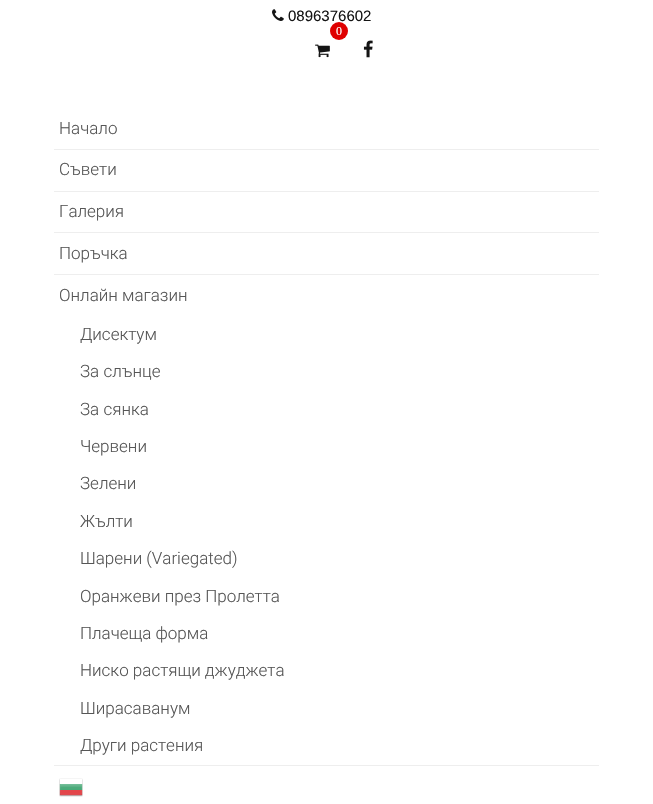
#include "include/core/SkBlurTypes.h"
#include "include/core/SkCanvas.h"
#include "include/core/SkData.h"
#include "include/core/SkFont.h"
#include "include/core/SkFontMgr.h"
#include "include/core/SkImage.h"
#include "include/core/SkMaskFilter.h"
#include "include/core/SkPaint.h"
#include "include/core/SkPathBuilder.h"
#include "include/core/SkTextBlob.h"
#include "include/effects/SkDashPathEffect.h"
#include "include/effects/SkGradientShader.h"
#include "include/utils/SkParsePath.h"

extern sk_sp<SkFontMgr> fontMgr;

static SkFont font(const char* family, int weight, float size, bool italic = false) {
    SkFontStyle style(weight, SkFontStyle::kNormal_Width,
        italic ? SkFontStyle::kItalic_Slant : SkFontStyle::kUpright_Slant);
    SkFont result(fontMgr->matchFamilyStyle(family, style), size);
    result.setSubpixel(true);
    return result;
}

static void drawLabel(SkCanvas* canvas, const char* s, float x, float y, const SkFont& font, SkColor color) {
    SkPaint ink(SkColor4f::FromColor(color));
    ink.setAntiAlias(true);
    canvas->drawString(s, x, y, font, ink);
}

static void fillRect(SkCanvas* canvas, float x, float y, float w, float h, SkColor color) {
    SkPaint ink(SkColor4f::FromColor(color));
    ink.setAntiAlias(true);
    canvas->drawRect(SkRect::MakeXYWH(x, y, w, h), ink);
}

static void drawPhoto(SkCanvas* canvas, const char* path, float x, float y, float w, float h) {
    auto image = SkImages::DeferredFromEncodedData(SkData::MakeFromFileName(path));
    canvas->drawImageRect(image, SkRect::MakeXYWH(x, y, w, h), SkSamplingOptions());
}

void draw(SkCanvas* canvas) {
    SkPaint paint;
    paint.setAntiAlias(true);
    canvas->clear(0xFFFFFFFF);
    drawPhoto(canvas, "assets/img1.png", 272, 9, 12, 12);
    SkFont font1 = font("Liberation Sans", 400, 15);
    drawLabel(canvas, "0896376602", 288, 21, font1, 0xFF141414);
    paint.setColor(0xFFDF0000);
    canvas->drawCircle(339, 31, 9, paint);
    SkFont font2 = font("Liberation Serif", 400, 12);
    drawLabel(canvas, "0", 336, 35, font2, 0xFFFFFFFF);
    drawPhoto(canvas, "assets/img2.png", 315, 44, 15, 14);
    drawPhoto(canvas, "assets/img3.png", 363, 40, 10, 18);
    fillRect(canvas, 54, 149, 545, 1, 0xFFEEEEEE);
    SkFont font3 = font("Roboto", 300, 17);
    drawLabel(canvas, "Начало", 59, 134, font3, 0xFF565656);
    fillRect(canvas, 54, 191, 545, 1, 0xFFEEEEEE);
    drawLabel(canvas, "Съвети", 59, 175, font3, 0xFF565656);
    fillRect(canvas, 54, 232, 545, 1, 0xFFEEEEEE);
    drawLabel(canvas, "Галерия", 59, 217, font3, 0xFF565656);
    fillRect(canvas, 54, 274, 545, 1, 0xFFEEEEEE);
    drawLabel(canvas, "Поръчка", 59, 259, font3, 0xFF565656);
    fillRect(canvas, 54, 765, 545, 1, 0xFFEEEEEE);
    drawLabel(canvas, "Онлайн магазин", 59, 301, font3, 0xFF565656);
    drawLabel(canvas, "Дисектум", 80, 340, font3, 0xFF565656);
    drawLabel(canvas, "За слънце", 80, 377, font3, 0xFF565656);
    drawLabel(canvas, "За сянка", 80, 415, font3, 0xFF565656);
    drawLabel(canvas, "Червени", 80, 452, font3, 0xFF565656);
    drawLabel(canvas, "Зелени", 80, 489, font3, 0xFF565656);
    drawLabel(canvas, "Жълти", 80, 527, font3, 0xFF565656);
    drawLabel(canvas, "Шарени (Variegated)", 80, 564, font3, 0xFF565656);
    drawLabel(canvas, "Оранжеви през Пролетта", 80, 602, font3, 0xFF565656);
    drawLabel(canvas, "Плачеща форма", 80, 639, font3, 0xFF565656);
    drawLabel(canvas, "Ниско растящи джуджета", 80, 676, font3, 0xFF565656);
    drawLabel(canvas, "Ширасаванум", 80, 714, font3, 0xFF565656);
    drawLabel(canvas, "Други растения", 80, 751, font3, 0xFF565656);
    drawPhoto(canvas, "assets/img4.png", 59, 778, 24, 19);
}
